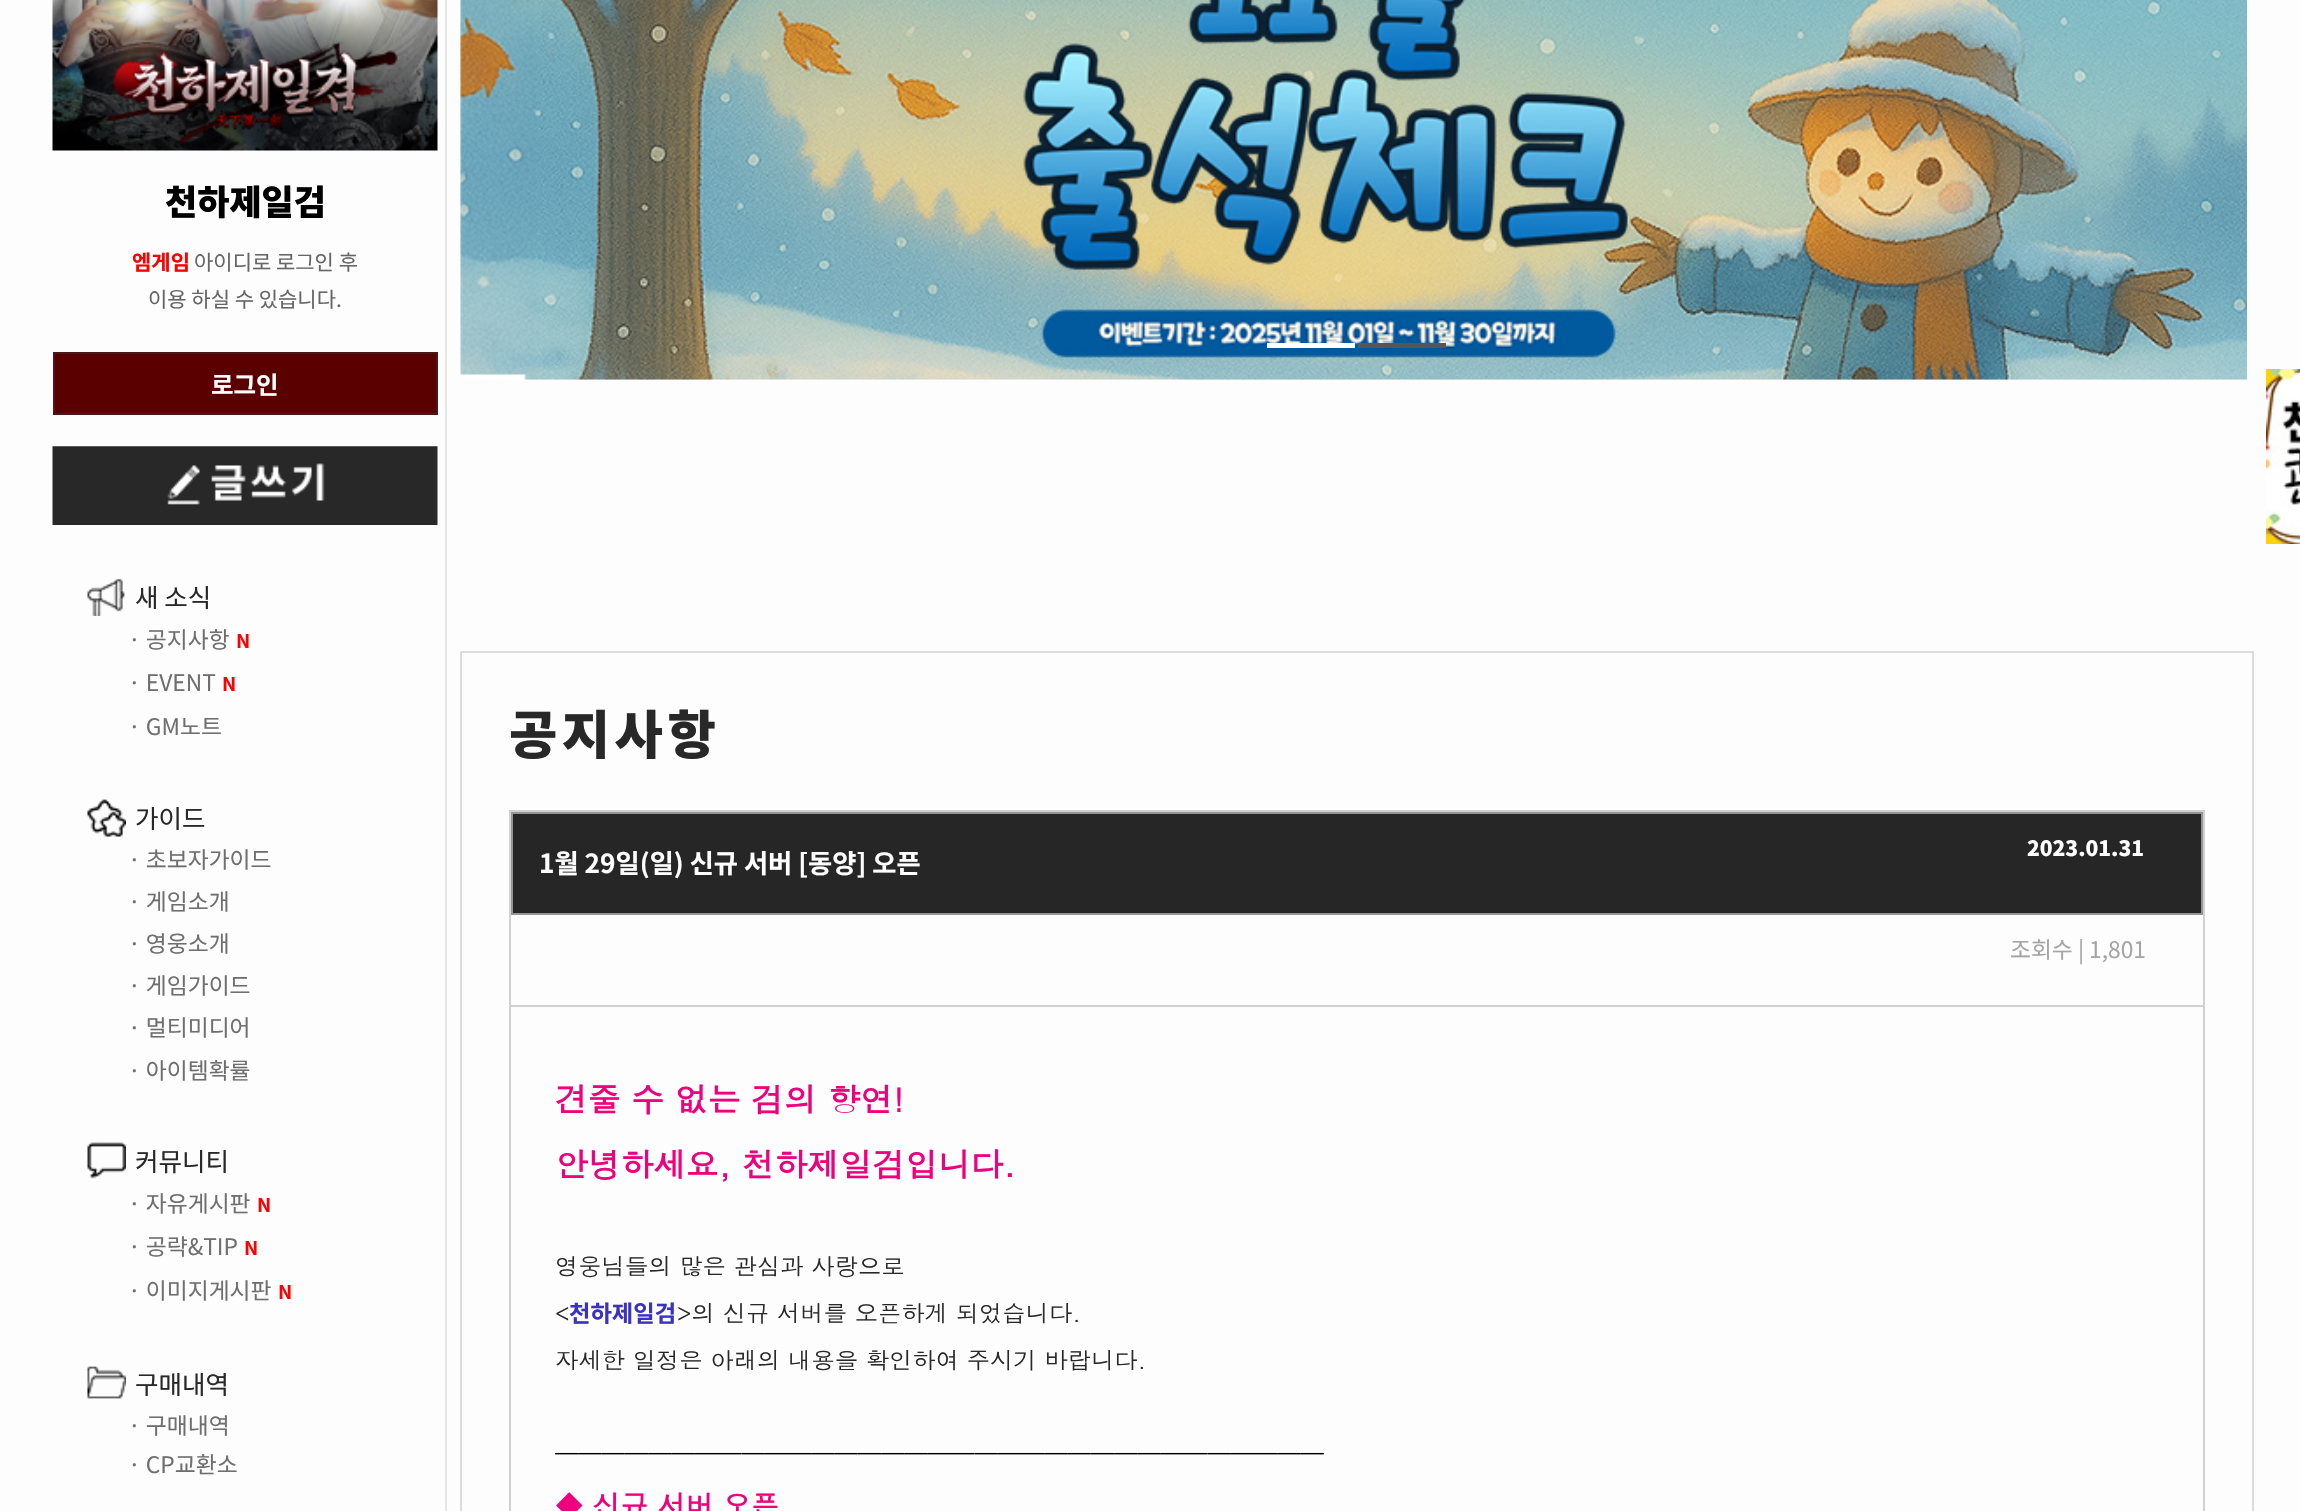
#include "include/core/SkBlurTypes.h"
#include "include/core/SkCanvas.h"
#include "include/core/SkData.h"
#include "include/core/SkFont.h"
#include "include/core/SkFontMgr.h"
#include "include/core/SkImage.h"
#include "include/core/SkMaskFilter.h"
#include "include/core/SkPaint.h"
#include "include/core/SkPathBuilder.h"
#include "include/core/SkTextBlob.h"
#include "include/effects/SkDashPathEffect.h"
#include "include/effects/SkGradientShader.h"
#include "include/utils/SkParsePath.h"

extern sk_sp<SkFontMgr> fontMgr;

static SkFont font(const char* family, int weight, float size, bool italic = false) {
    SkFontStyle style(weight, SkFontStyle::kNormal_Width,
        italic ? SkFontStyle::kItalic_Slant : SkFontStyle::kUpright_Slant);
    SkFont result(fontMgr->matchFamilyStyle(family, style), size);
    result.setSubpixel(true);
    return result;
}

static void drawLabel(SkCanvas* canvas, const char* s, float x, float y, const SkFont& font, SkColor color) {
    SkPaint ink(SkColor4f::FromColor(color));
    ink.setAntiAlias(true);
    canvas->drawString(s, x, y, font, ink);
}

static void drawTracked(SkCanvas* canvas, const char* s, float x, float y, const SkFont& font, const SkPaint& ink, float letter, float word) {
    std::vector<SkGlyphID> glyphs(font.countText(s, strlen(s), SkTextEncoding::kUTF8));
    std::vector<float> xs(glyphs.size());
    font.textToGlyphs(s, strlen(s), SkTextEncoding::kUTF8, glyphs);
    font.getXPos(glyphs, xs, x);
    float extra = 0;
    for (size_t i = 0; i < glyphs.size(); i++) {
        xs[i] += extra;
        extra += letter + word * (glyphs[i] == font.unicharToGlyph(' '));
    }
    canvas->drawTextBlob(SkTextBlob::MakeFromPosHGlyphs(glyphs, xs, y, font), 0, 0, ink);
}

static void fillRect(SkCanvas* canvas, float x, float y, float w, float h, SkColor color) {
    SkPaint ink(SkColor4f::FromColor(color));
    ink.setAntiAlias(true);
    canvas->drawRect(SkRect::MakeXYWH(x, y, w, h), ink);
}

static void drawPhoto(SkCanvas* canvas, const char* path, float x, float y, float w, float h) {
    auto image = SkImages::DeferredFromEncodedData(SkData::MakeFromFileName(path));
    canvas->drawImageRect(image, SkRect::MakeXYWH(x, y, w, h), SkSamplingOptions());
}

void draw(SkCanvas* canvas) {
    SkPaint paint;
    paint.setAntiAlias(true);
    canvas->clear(0xFFFDFDFD);
    fillRect(canvas, 445, 0, 2, 1511, 0xFFE6E6E6);
    drawPhoto(canvas, "assets/img1.png", 52, 0, 386, 151);
    SkFont font1 = font("Noto Sans KR", 900, 35);
    drawLabel(canvas, "천하제일검", 165, 215, font1, 0xFF000000);
    SkFont font2 = font("Noto Sans KR", 700, 21);
    drawLabel(canvas, "엠게임", 132, 270, font2, 0xFFFF0000);
    SkFont font3 = font("Noto Sans KR", 400, 21);
    drawLabel(canvas, "아이디로 로그인 후", 194, 270, font3, 0xFF666666);
    drawLabel(canvas, "이용 하실 수 있습니다.", 148, 307, font3, 0xFF666666);
    paint.setColor(0xFF5B0000);
    canvas->drawRect(SkRect::MakeXYWH(54, 353, 383, 61), paint);
    paint.setStroke(true);
    paint.setStrokeWidth(2);
    paint.setColor(0xFF4A1818);
    canvas->drawRect(SkRect::MakeXYWH(54, 353, 383, 61), paint);
    SkFont font4 = font("Noto Sans KR", 700, 24.5f);
    drawLabel(canvas, "로그인", 211, 394, font4, 0xFFFFFFFF);
    drawPhoto(canvas, "assets/img2.png", 52, 446, 386, 79);
    drawPhoto(canvas, "assets/img3.png", 87, 578, 38, 38);
    SkFont font5 = font("Noto Sans KR", 400, 25.5f);
    drawLabel(canvas, "새 소식", 135, 607, font5, 0xFF282828);
    SkFont font6 = font("Noto Sans KR", 400, 22.75f);
    drawLabel(canvas, "· 공지사항", 128, 648, font6, 0xFF6F6F6F);
    SkFont font7 = font("Noto Sans KR", 700, 19);
    drawLabel(canvas, "N", 236, 648, font7, 0xFFFF0000);
    drawLabel(canvas, "· EVENT", 128, 691, font6, 0xFF6F6F6F);
    drawLabel(canvas, "N", 222, 691, font7, 0xFFFF0000);
    drawLabel(canvas, "· GM노트", 128, 735, font6, 0xFF6F6F6F);
    drawPhoto(canvas, "assets/img4.png", 87, 799, 39, 38);
    drawLabel(canvas, "가이드", 135, 828, font5, 0xFF282828);
    drawLabel(canvas, "· 초보자가이드", 128, 868, font6, 0xFF6F6F6F);
    drawLabel(canvas, "· 게임소개", 128, 910, font6, 0xFF6F6F6F);
    drawLabel(canvas, "· 영웅소개", 128, 952, font6, 0xFF6F6F6F);
    drawLabel(canvas, "· 게임가이드", 128, 994, font6, 0xFF6F6F6F);
    drawLabel(canvas, "· 멀티미디어", 128, 1036, font6, 0xFF6F6F6F);
    drawLabel(canvas, "· 아이템확률", 128, 1079, font6, 0xFF6F6F6F);
    drawPhoto(canvas, "assets/img5.png", 87, 1142, 39, 37);
    drawLabel(canvas, "커뮤니티", 135, 1171, font5, 0xFF282828);
    drawLabel(canvas, "· 자유게시판", 128, 1212, font6, 0xFF6F6F6F);
    drawLabel(canvas, "N", 257, 1212, font7, 0xFFFF0000);
    drawLabel(canvas, "· 공략&TIP", 128, 1255, font6, 0xFF6F6F6F);
    drawLabel(canvas, "N", 244, 1255, font7, 0xFFFF0000);
    drawLabel(canvas, "· 이미지게시판", 128, 1299, font6, 0xFF6F6F6F);
    drawLabel(canvas, "N", 278, 1299, font7, 0xFFFF0000);
    drawPhoto(canvas, "assets/img6.png", 87, 1366, 39, 33);
    drawLabel(canvas, "구매내역", 135, 1394, font5, 0xFF282828);
    drawLabel(canvas, "· 구매내역", 128, 1434, font6, 0xFF6F6F6F);
    drawLabel(canvas, "· CP교환소", 128, 1473, font6, 0xFF6F6F6F);
    drawPhoto(canvas, "assets/img7.png", 460, 0, 1787, 380);
    fillRect(canvas, 1267, 343, 88, 5, 0xFFFFFFFF);
    fillRect(canvas, 1358, 343, 88, 5, 0xFF565656);
    drawPhoto(canvas, "assets/img8.png", 2266, 369, 34, 175);
    paint.setColor(0xFFDDDDDD);
    canvas->drawRect(SkRect::MakeXYWH(461, 652, 1792, 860), paint);
    SkFont font8 = font("Noto Sans KR", 900, 52.5f);
    paint.setStroke(false);
    paint.setColor(0xFF282828);
    drawTracked(canvas, "공지사항", 509, 754, font8, paint, 4.5f, 0);
    paint.setStroke(true);
    paint.setColor(0xFFD1D1D1);
    canvas->drawRect(SkRect::MakeXYWH(510, 811, 1694, 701), paint);
    paint.setStroke(false);
    paint.setColor(0xFF262626);
    canvas->drawRect(SkRect::MakeXYWH(512, 813, 1690, 101), paint);
    paint.setStroke(true);
    paint.setColor(0xFF959595);
    canvas->drawRect(SkRect::MakeXYWH(512, 813, 1690, 101), paint);
    SkFont font9 = font("Noto Sans KR", 900, 21);
    drawLabel(canvas, "2023.01.31", 2027, 856, font9, 0xFFFFFFFF);
    SkFont font10 = font("Noto Sans KR", 700, 26.25f);
    drawLabel(canvas, "1월 29일(일) 신규 서버 [동양] 오픈", 539, 873, font10, 0xFFFFFFFF);
    fillRect(canvas, 511, 1005, 1692, 2, 0xFFD1D1D1);
    drawLabel(canvas, "조회수 | 1,801", 2010, 958, font6, 0xFFA5A5A5);
    SkFont font11 = font("Dotum", 700, 32.7f);
    drawLabel(canvas, "견줄 수 없는 검의 향연!", 555, 1112, font11, 0xFFEF007C);
    drawLabel(canvas, "안녕하세요, 천하제일검입니다.", 555, 1177, font11, 0xFFEF007C);
    SkFont font12 = font("Dotum", 400, 23.3f);
    drawLabel(canvas, "영웅님들의 많은 관심과 사랑으로", 555, 1275, font12, 0xFF282828);
    drawLabel(canvas, "<", 555, 1322, font12, 0xFF282828);
    SkFont font13 = font("Noto Sans KR", 700, 23.3f);
    drawLabel(canvas, "천하제일검", 569, 1322, font13, 0xFF3A32C3);
    drawLabel(canvas, ">의 신규 서버를 오픈하게 되었습니다.", 677, 1322, font12, 0xFF282828);
    drawLabel(canvas, "자세한 일정은 아래의 내용을 확인하여 주시기 바랍니다.", 555, 1369, font12, 0xFF282828);
    drawLabel(canvas, "─────────────────────────────────", 555, 1462, font12, 0xFF000000);
    SkFont font14 = font("Dotum", 700, 28);
    drawLabel(canvas, "◆ 신규 서버 오픈", 555, 1516, font14, 0xFFEF007C);
}
